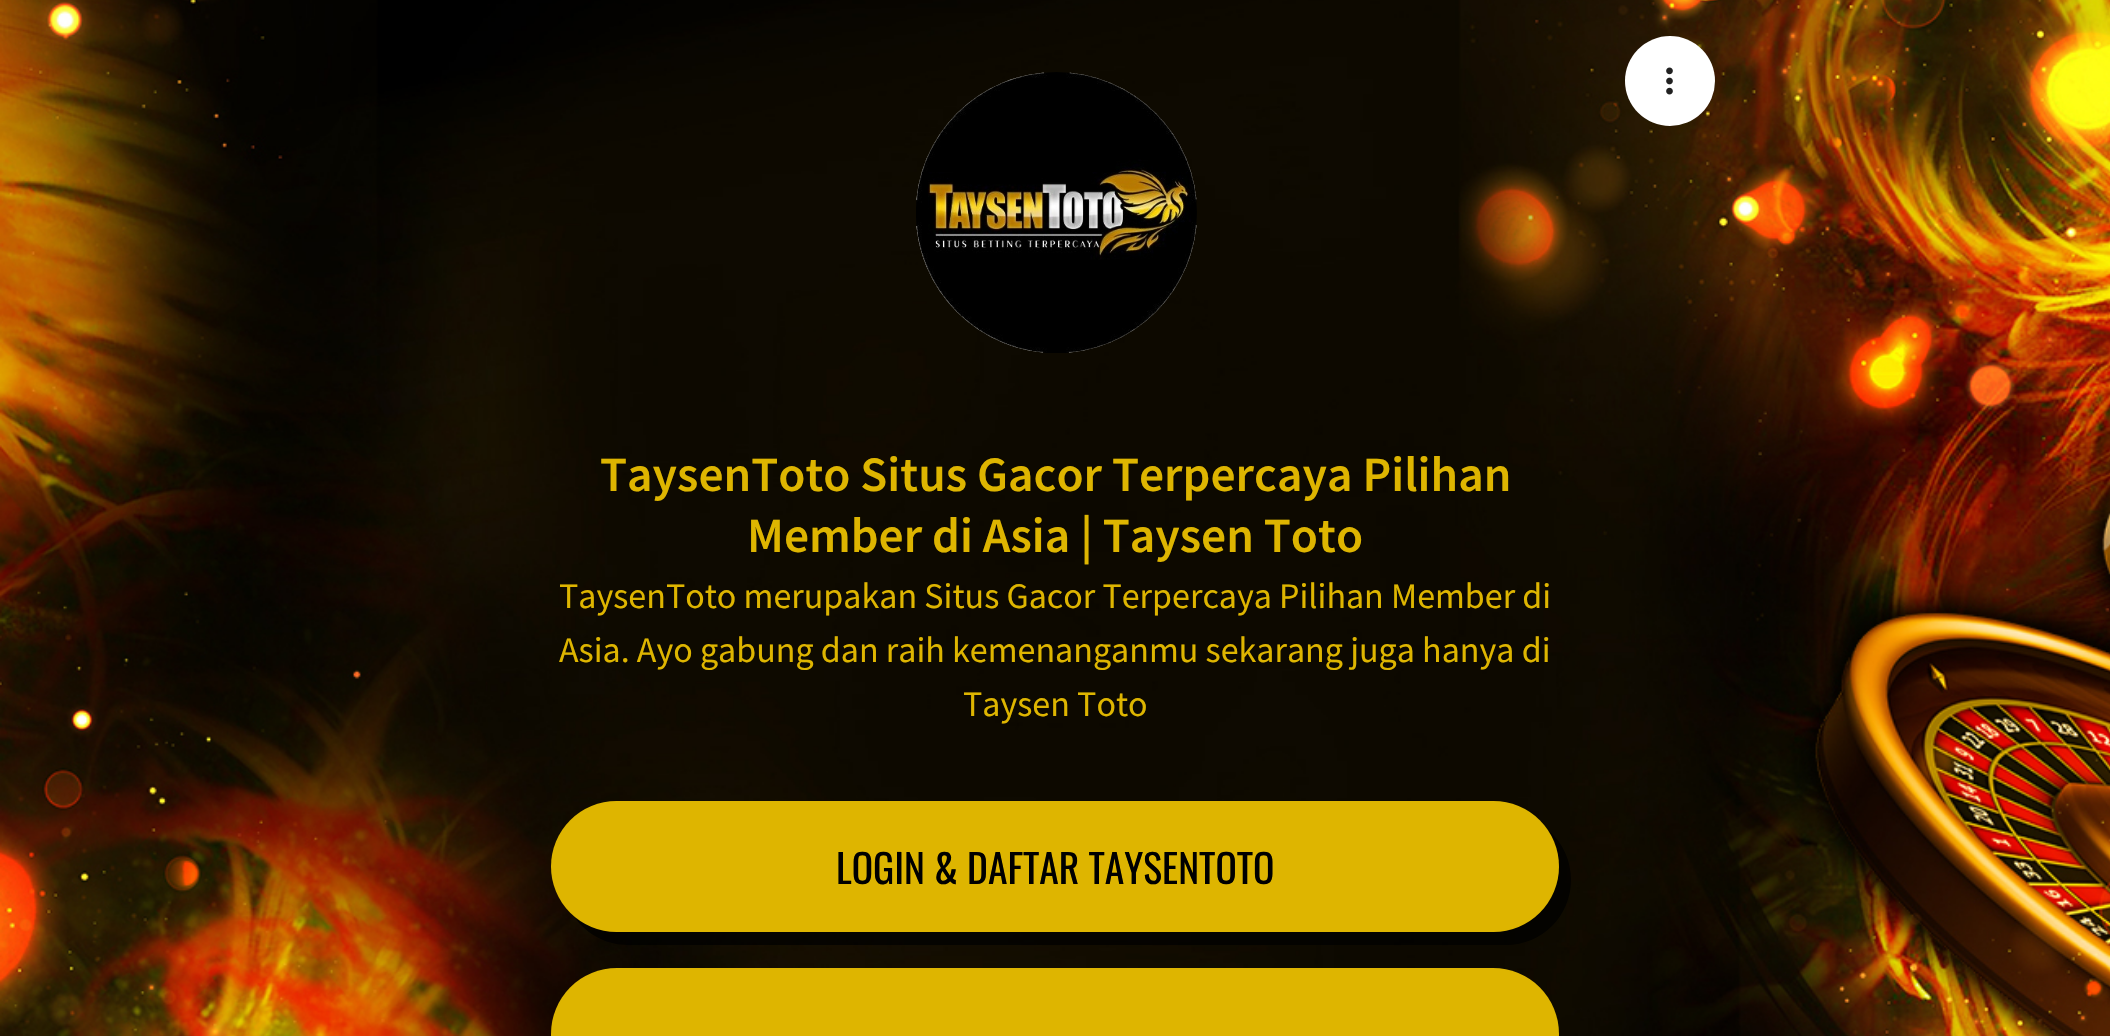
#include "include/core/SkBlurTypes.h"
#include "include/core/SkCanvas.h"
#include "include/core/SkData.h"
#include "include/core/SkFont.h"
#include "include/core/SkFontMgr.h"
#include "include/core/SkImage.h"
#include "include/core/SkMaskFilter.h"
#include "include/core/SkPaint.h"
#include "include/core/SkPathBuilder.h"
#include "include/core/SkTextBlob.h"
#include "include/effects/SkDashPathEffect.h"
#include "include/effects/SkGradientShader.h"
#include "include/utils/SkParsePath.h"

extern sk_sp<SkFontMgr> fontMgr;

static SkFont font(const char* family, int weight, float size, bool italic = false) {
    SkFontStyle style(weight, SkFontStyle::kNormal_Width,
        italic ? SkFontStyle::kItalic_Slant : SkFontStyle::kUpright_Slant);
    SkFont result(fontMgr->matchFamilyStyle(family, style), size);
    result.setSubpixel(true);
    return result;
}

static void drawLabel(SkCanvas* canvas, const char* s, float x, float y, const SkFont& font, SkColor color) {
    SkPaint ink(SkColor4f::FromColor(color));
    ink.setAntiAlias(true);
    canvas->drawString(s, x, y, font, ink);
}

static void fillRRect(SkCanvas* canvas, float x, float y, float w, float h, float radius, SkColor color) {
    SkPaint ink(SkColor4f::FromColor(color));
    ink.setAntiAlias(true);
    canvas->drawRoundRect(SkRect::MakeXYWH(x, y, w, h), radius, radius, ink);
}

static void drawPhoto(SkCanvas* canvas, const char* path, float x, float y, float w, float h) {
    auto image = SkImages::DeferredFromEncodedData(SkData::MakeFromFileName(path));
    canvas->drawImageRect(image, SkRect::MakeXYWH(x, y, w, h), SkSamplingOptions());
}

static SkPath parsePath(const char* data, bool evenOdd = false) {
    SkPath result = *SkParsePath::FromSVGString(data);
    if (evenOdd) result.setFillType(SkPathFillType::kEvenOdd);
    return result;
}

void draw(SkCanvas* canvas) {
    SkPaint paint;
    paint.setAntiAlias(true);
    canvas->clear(0xFFFFFFFF);
    drawPhoto(canvas, "assets/img1.png", 0, 0, 2110, 1036);
    paint.setColor(0xFFFFFFFF);
    canvas->drawCircle(1670, 81, 45, paint);
    drawPhoto(canvas, "assets/img2.png", 1666, 67, 7, 28);
    drawPhoto(canvas, "assets/img3.png", 916, 72, 281, 281);
    SkFont font1 = font("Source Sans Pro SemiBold", 600, 49.5f);
    drawLabel(canvas, "TaysenToto Situs Gacor Terpercaya Pilihan", 600, 491, font1, 0xFFDEB500);
    drawLabel(canvas, "Member di Asia | Taysen Toto", 747, 552, font1, 0xFFDEB500);
    SkFont font2 = font("Source Sans Pro", 400, 36);
    drawLabel(canvas, "TaysenToto merupakan Situs Gacor Terpercaya Pilihan Member di", 559, 608, font2, 0xFFDEB500);
    drawLabel(canvas, "Asia. Ayo gabung dan raih kemenanganmu sekarang juga hanya di", 559, 662, font2, 0xFFDEB500);
    drawLabel(canvas, "Taysen Toto", 963, 716, font2, 0xFFDEB500);
    paint.setColor(0xBF000000);
    canvas->drawPath(parsePath("M573 915C585 933 605 945 628 945H1506C1542 945 1571 916 1571 880C1571 861 1563 843 1549 831C1556 841 1559 853 1559 866C1559 902 1530 932 1494 932H616C600 932 585 925 573 915Z"), paint);
    fillRRect(canvas, 551, 801, 1008, 131, 65.5f, 0xFFDEB500);
    SkFont font3 = font("Oswald", 400, 39.6f);
    drawLabel(canvas, "LOGIN & DAFTAR TAYSENTOTO", 836, 884, font3, 0xFF000000);
    fillRRect(canvas, 551, 968, 1008, 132, 66, 0xFFDEB500);
}
